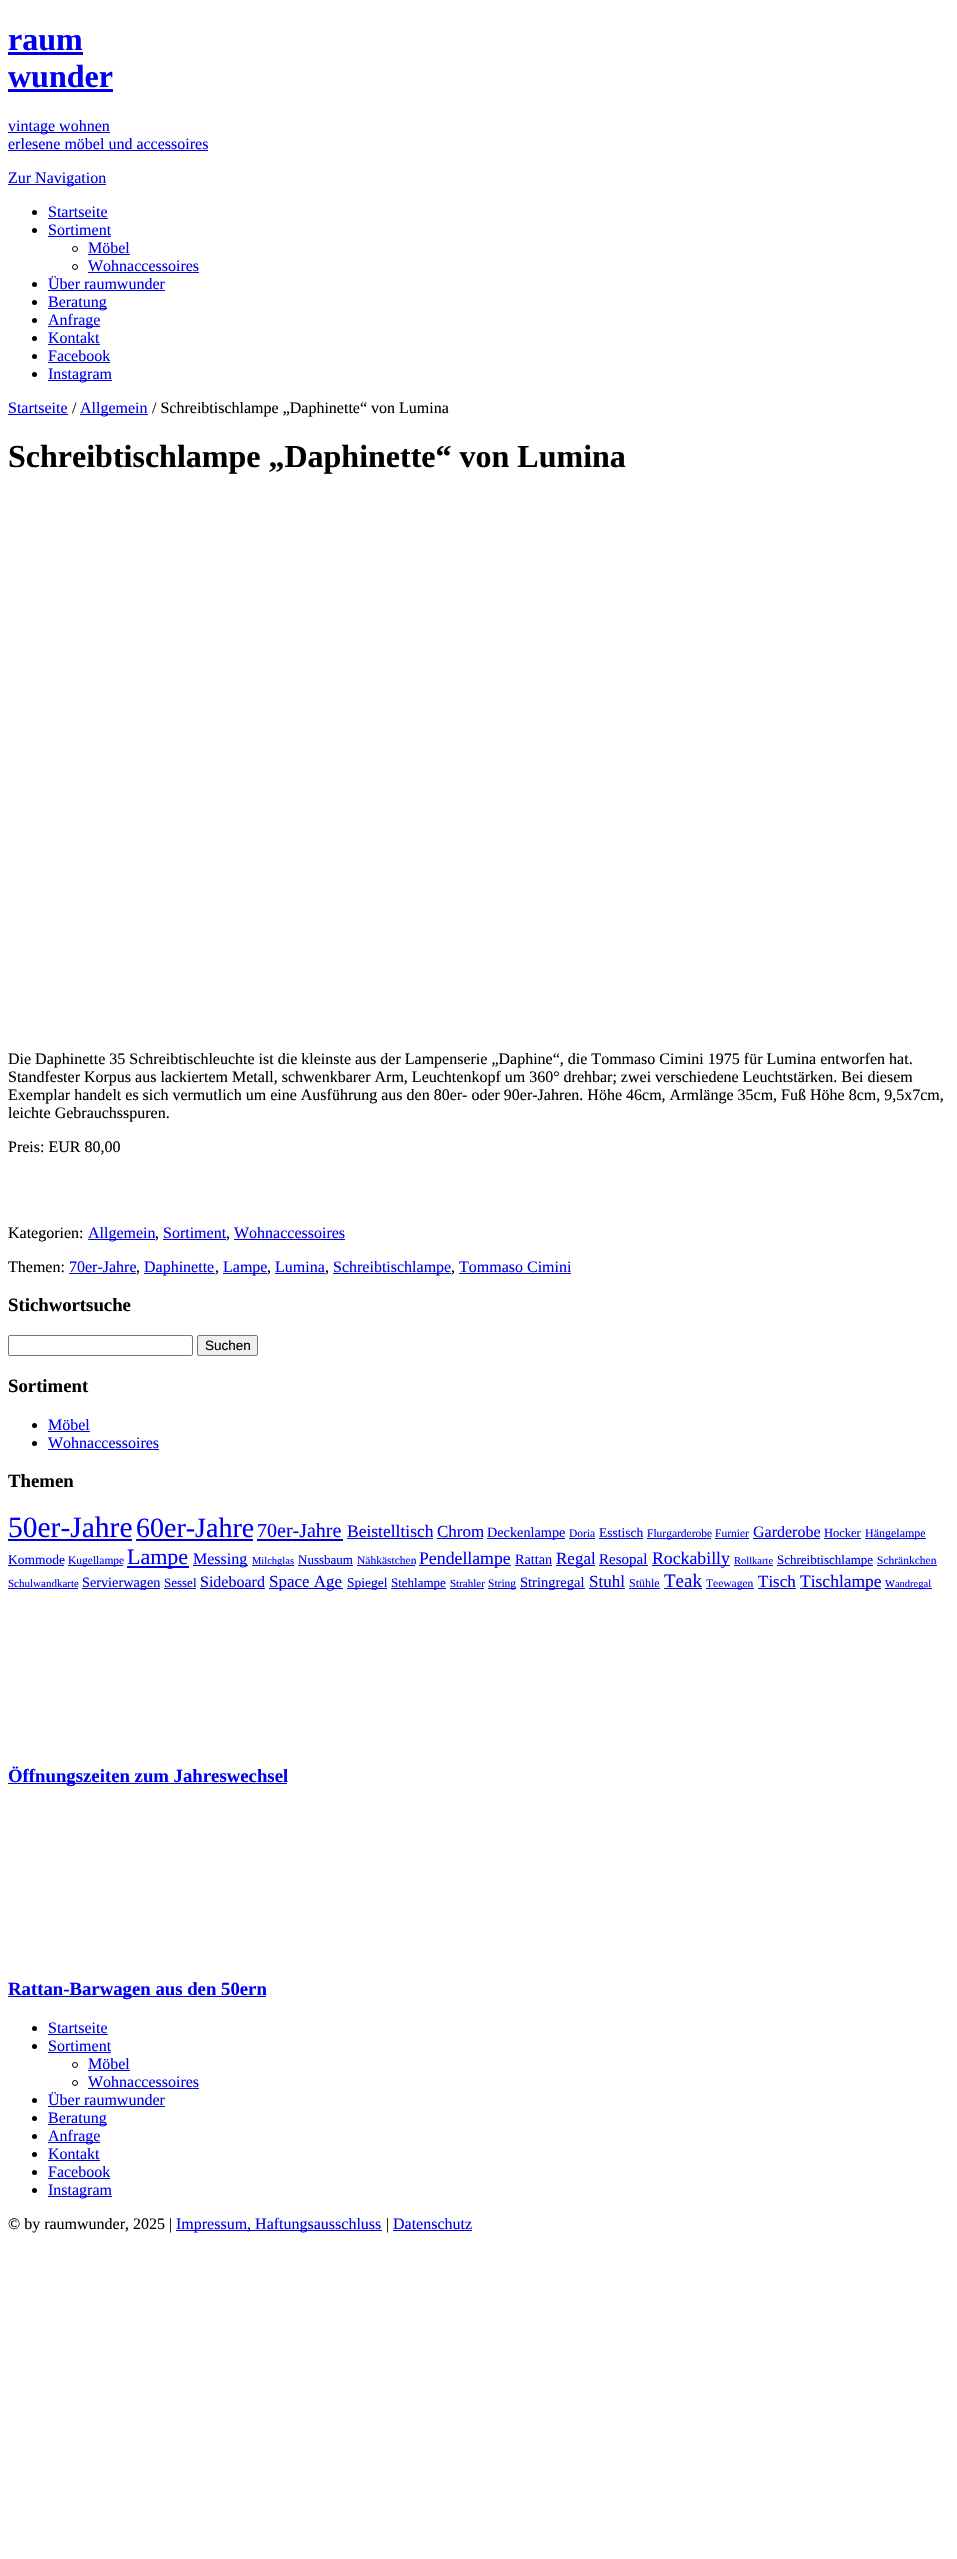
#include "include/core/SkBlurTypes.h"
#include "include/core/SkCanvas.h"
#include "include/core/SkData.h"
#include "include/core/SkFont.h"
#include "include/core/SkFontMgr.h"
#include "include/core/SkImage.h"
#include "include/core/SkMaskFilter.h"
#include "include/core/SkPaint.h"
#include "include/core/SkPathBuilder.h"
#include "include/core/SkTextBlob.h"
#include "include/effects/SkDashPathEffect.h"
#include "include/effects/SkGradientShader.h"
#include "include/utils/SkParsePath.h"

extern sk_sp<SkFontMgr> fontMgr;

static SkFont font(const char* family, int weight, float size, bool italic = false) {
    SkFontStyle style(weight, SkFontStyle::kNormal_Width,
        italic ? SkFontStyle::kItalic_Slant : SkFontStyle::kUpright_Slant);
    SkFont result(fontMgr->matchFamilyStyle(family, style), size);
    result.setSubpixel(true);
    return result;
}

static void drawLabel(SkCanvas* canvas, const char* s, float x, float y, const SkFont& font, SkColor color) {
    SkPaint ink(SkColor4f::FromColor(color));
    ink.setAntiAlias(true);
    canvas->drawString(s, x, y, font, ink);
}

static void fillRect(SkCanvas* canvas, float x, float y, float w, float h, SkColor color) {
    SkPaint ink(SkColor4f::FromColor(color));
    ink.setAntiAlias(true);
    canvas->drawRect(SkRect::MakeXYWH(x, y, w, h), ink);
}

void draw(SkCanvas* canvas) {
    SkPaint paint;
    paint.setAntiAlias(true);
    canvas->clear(0xFFFFFFFF);
    SkFont font1 = font("Liberation Serif", 700, 32);
    drawLabel(canvas, "raum", 8, 50, font1, 0xFF0000EE);
    fillRect(canvas, 8, 52, 75, 3, 0xFF0000EE);
    drawLabel(canvas, "wunder", 8, 87, font1, 0xFF0000EE);
    fillRect(canvas, 8, 89, 105, 3, 0xFF0000EE);
    fillRect(canvas, 8, 132, 102, 1, 0xFF0000EE);
    SkFont font2 = font("Liberation Serif", 400, 16);
    drawLabel(canvas, "vintage wohnen", 8, 131, font2, 0xFF0000EE);
    drawLabel(canvas, "erlesene möbel und accessoires", 8, 149, font2, 0xFF0000EE);
    fillRect(canvas, 8, 150, 200, 1, 0xFF0000EE);
    fillRect(canvas, 8, 184, 98, 1, 0xFF0000EE);
    drawLabel(canvas, "Zur Navigation", 8, 183, font2, 0xFF0000EE);
    paint.setColor(0xFF000000);
    canvas->drawCircle(34.5f, 212.5f, 2.5f, paint);
    drawLabel(canvas, "Startseite", 48, 217, font2, 0xFF0000EE);
    fillRect(canvas, 48, 218, 60, 1, 0xFF0000EE);
    canvas->drawCircle(34.5f, 230.5f, 2.5f, paint);
    drawLabel(canvas, "Sortiment", 48, 235, font2, 0xFF0000EE);
    fillRect(canvas, 48, 236, 63, 1, 0xFF0000EE);
    paint.setStroke(true);
    paint.setStrokeWidth(1);
    canvas->drawCircle(75, 249, 2.5f, paint);
    drawLabel(canvas, "Möbel", 88, 253, font2, 0xFF0000EE);
    fillRect(canvas, 88, 254, 42, 1, 0xFF0000EE);
    canvas->drawCircle(75, 267, 2.5f, paint);
    drawLabel(canvas, "Wohnaccessoires", 88, 271, font2, 0xFF0000EE);
    fillRect(canvas, 88, 272, 111, 1, 0xFF0000EE);
    paint.setStroke(false);
    canvas->drawCircle(34.5f, 284.5f, 2.5f, paint);
    drawLabel(canvas, "Über raumwunder", 48, 289, font2, 0xFF0000EE);
    fillRect(canvas, 48, 290, 117, 1, 0xFF0000EE);
    canvas->drawCircle(34.5f, 302.5f, 2.5f, paint);
    fillRect(canvas, 48, 308, 59, 1, 0xFF0000EE);
    drawLabel(canvas, "Beratung", 48, 307, font2, 0xFF0000EE);
    canvas->drawCircle(34.5f, 320.5f, 2.5f, paint);
    fillRect(canvas, 48, 326, 52, 1, 0xFF0000EE);
    drawLabel(canvas, "Anfrage", 48, 325, font2, 0xFF0000EE);
    canvas->drawCircle(34.5f, 338.5f, 2.5f, paint);
    drawLabel(canvas, "Kontakt", 48, 343, font2, 0xFF0000EE);
    fillRect(canvas, 48, 344, 52, 1, 0xFF0000EE);
    canvas->drawCircle(34.5f, 356.5f, 2.5f, paint);
    drawLabel(canvas, "Facebook", 48, 361, font2, 0xFF0000EE);
    fillRect(canvas, 48, 362, 62, 1, 0xFF0000EE);
    canvas->drawCircle(34.5f, 374.5f, 2.5f, paint);
    fillRect(canvas, 48, 380, 64, 1, 0xFF0000EE);
    drawLabel(canvas, "Instagram", 48, 379, font2, 0xFF0000EE);
    drawLabel(canvas, "Startseite", 8, 413, font2, 0xFF0000EE);
    fillRect(canvas, 8, 414, 60, 1, 0xFF0000EE);
    drawLabel(canvas, "/", 72, 413, font2, 0xFF000000);
    fillRect(canvas, 80, 414, 68, 1, 0xFF0000EE);
    drawLabel(canvas, "Allgemein", 80, 413, font2, 0xFF0000EE);
    drawLabel(canvas, "/ Schreibtischlampe „Daphinette“ von Lumina", 152, 413, font2, 0xFF000000);
    drawLabel(canvas, "Schreibtischlampe „Daphinette“ von Lumina", 8, 467, font1, 0xFF000000);
    drawLabel(canvas, "Die Daphinette 35 Schreibtischleuchte ist die kleinste aus der Lampenserie „Daphine“, die Tommaso Cimini 1975 für Lumina entworfen hat.", 8, 1064, font2, 0xFF000000);
    drawLabel(canvas, "Standfester Korpus aus lackiertem Metall, schwenkbarer Arm, Leuchtenkopf um 360° drehbar; zwei verschiedene Leuchtstärken. Bei diesem", 8, 1082, font2, 0xFF000000);
    drawLabel(canvas, "Exemplar handelt es sich vermutlich um eine Ausführung aus den 80er- oder 90er-Jahren. Höhe 46cm, Armlänge 35cm, Fuß Höhe 8cm, 9,5x7cm,", 8, 1100, font2, 0xFF000000);
    drawLabel(canvas, "leichte Gebrauchsspuren.", 8, 1118, font2, 0xFF000000);
    drawLabel(canvas, "Preis: EUR 80,00", 8, 1152, font2, 0xFF000000);
    drawLabel(canvas, "Kategorien:", 8, 1238, font2, 0xFF000000);
    fillRect(canvas, 88, 1239, 67, 1, 0xFF0000EE);
    drawLabel(canvas, "Allgemein", 88, 1238, font2, 0xFF0000EE);
    drawLabel(canvas, ",", 155, 1238, font2, 0xFF000000);
    drawLabel(canvas, "Sortiment", 163, 1238, font2, 0xFF0000EE);
    drawLabel(canvas, ",", 226, 1238, font2, 0xFF000000);
    fillRect(canvas, 163, 1239, 63, 1, 0xFF0000EE);
    fillRect(canvas, 234, 1239, 111, 1, 0xFF0000EE);
    drawLabel(canvas, "Wohnaccessoires", 234, 1238, font2, 0xFF0000EE);
    drawLabel(canvas, "Themen:", 8, 1272, font2, 0xFF000000);
    drawLabel(canvas, "70er-Jahre", 69, 1272, font2, 0xFF0000EE);
    drawLabel(canvas, ",", 136, 1272, font2, 0xFF000000);
    fillRect(canvas, 69, 1273, 67, 1, 0xFF0000EE);
    fillRect(canvas, 144, 1273, 71, 1, 0xFF0000EE);
    drawLabel(canvas, "Daphinette", 144, 1272, font2, 0xFF0000EE);
    drawLabel(canvas, ",", 215, 1272, font2, 0xFF000000);
    fillRect(canvas, 223, 1273, 44, 1, 0xFF0000EE);
    drawLabel(canvas, "Lampe", 223, 1272, font2, 0xFF0000EE);
    drawLabel(canvas, ",", 267, 1272, font2, 0xFF000000);
    drawLabel(canvas, "Lumina", 275, 1272, font2, 0xFF0000EE);
    drawLabel(canvas, ",", 325, 1272, font2, 0xFF000000);
    fillRect(canvas, 275, 1273, 50, 1, 0xFF0000EE);
    fillRect(canvas, 333, 1273, 118, 1, 0xFF0000EE);
    drawLabel(canvas, "Schreibtischlampe", 333, 1272, font2, 0xFF0000EE);
    drawLabel(canvas, ",", 451, 1272, font2, 0xFF000000);
    fillRect(canvas, 459, 1273, 112, 1, 0xFF0000EE);
    drawLabel(canvas, "Tommaso Cimini", 459, 1272, font2, 0xFF0000EE);
    SkFont font3 = font("Liberation Serif", 700, 18.75f);
    drawLabel(canvas, "Stichwortsuche", 8, 1311, font3, 0xFF000000);
    paint.setStroke(true);
    paint.setColor(0xFF767676);
    canvas->drawRoundRect(SkRect::MakeXYWH(8.5f, 1335.5f, 184, 20), 1.5f, 1.5f, paint);
    paint.setStroke(false);
    paint.setColor(0xFFEFEFEF);
    canvas->drawRoundRect(SkRect::MakeXYWH(197.5f, 1335.5f, 60, 20), 1.5f, 1.5f, paint);
    paint.setStroke(true);
    paint.setColor(0xFF767676);
    canvas->drawRoundRect(SkRect::MakeXYWH(197.5f, 1335.5f, 60, 20), 1.5f, 1.5f, paint);
    SkFont font4 = font("Liberation Sans", 400, 13.5f);
    drawLabel(canvas, "Suchen", 205, 1350, font4, 0xFF000000);
    drawLabel(canvas, "Sortiment", 8, 1392, font3, 0xFF000000);
    paint.setStroke(false);
    paint.setColor(0xFF000000);
    canvas->drawCircle(34.5f, 1425.5f, 2.5f, paint);
    drawLabel(canvas, "Möbel", 48, 1430, font2, 0xFF0000EE);
    fillRect(canvas, 48, 1431, 42, 1, 0xFF0000EE);
    canvas->drawCircle(34.5f, 1443.5f, 2.5f, paint);
    drawLabel(canvas, "Wohnaccessoires", 48, 1448, font2, 0xFF0000EE);
    fillRect(canvas, 48, 1449, 111, 1, 0xFF0000EE);
    drawLabel(canvas, "Themen", 8, 1487, font3, 0xFF000000);
    SkFont font5 = font("Liberation Serif", 400, 29.5f);
    drawLabel(canvas, "50er-Jahre", 8, 1537, font5, 0xFF0000EE);
    fillRect(canvas, 8, 1539, 124, 2, 0xFF0000EE);
    SkFont font6 = font("Liberation Serif", 400, 28);
    drawLabel(canvas, "60er-Jahre", 136, 1537, font6, 0xFF0000EE);
    fillRect(canvas, 136, 1539, 117, 2, 0xFF0000EE);
    SkFont font7 = font("Liberation Serif", 400, 20);
    drawLabel(canvas, "70er-Jahre", 257, 1537, font7, 0xFF0000EE);
    fillRect(canvas, 257, 1539, 86, 2, 0xFF0000EE);
    SkFont font8 = font("Liberation Serif", 400, 17.5f);
    drawLabel(canvas, "Beistelltisch", 347, 1537, font8, 0xFF0000EE);
    fillRect(canvas, 347, 1538, 86, 1, 0xFF0000EE);
    SkFont font9 = font("Liberation Serif", 400, 17);
    drawLabel(canvas, "Chrom", 437, 1537, font9, 0xFF0000EE);
    fillRect(canvas, 437, 1538, 46, 1, 0xFF0000EE);
    fillRect(canvas, 487, 1538, 78, 1, 0xFF0000EE);
    SkFont font10 = font("Liberation Serif", 400, 14.25f);
    drawLabel(canvas, "Deckenlampe", 487, 1537, font10, 0xFF0000EE);
    SkFont font11 = font("Liberation Serif", 400, 11.5f);
    drawLabel(canvas, "Doria", 569, 1537, font11, 0xFF0000EE);
    fillRect(canvas, 569, 1538, 26, 1, 0xFF0000EE);
    SkFont font12 = font("Liberation Serif", 400, 13.5f);
    drawLabel(canvas, "Esstisch", 599, 1537, font12, 0xFF0000EE);
    fillRect(canvas, 599, 1538, 44, 1, 0xFF0000EE);
    fillRect(canvas, 647, 1538, 64, 1, 0xFF0000EE);
    drawLabel(canvas, "Flurgarderobe", 647, 1537, font11, 0xFF0000EE);
    drawLabel(canvas, "Furnier", 715, 1537, font11, 0xFF0000EE);
    fillRect(canvas, 715, 1538, 34, 1, 0xFF0000EE);
    drawLabel(canvas, "Garderobe", 753, 1537, font2, 0xFF0000EE);
    fillRect(canvas, 753, 1538, 67, 1, 0xFF0000EE);
    SkFont font13 = font("Liberation Serif", 400, 12.5f);
    drawLabel(canvas, "Hocker", 824, 1537, font13, 0xFF0000EE);
    fillRect(canvas, 824, 1538, 37, 1, 0xFF0000EE);
    fillRect(canvas, 865, 1538, 61, 1, 0xFF0000EE);
    SkFont font14 = font("Liberation Serif", 400, 12);
    drawLabel(canvas, "Hängelampe", 865, 1537, font14, 0xFF0000EE);
    drawLabel(canvas, "Kommode", 8, 1564, font12, 0xFF0000EE);
    fillRect(canvas, 8, 1565, 56, 1, 0xFF0000EE);
    fillRect(canvas, 68, 1565, 55, 1, 0xFF0000EE);
    drawLabel(canvas, "Kugellampe", 68, 1564, font11, 0xFF0000EE);
    fillRect(canvas, 127, 1566, 62, 2, 0xFF0000EE);
    SkFont font15 = font("Liberation Serif", 400, 22);
    drawLabel(canvas, "Lampe", 127, 1564, font15, 0xFF0000EE);
    fillRect(canvas, 193, 1565, 55, 1, 0xFF0000EE);
    drawLabel(canvas, "Messing", 193, 1564, font2, 0xFF0000EE);
    fillRect(canvas, 252, 1565, 42, 1, 0xFF0000EE);
    SkFont font16 = font("Liberation Serif", 400, 10.5f);
    drawLabel(canvas, "Milchglas", 252, 1564, font16, 0xFF0000EE);
    SkFont font17 = font("Liberation Serif", 400, 13);
    drawLabel(canvas, "Nussbaum", 298, 1564, font17, 0xFF0000EE);
    fillRect(canvas, 298, 1565, 55, 1, 0xFF0000EE);
    drawLabel(canvas, "Nähkästchen", 357, 1564, font11, 0xFF0000EE);
    fillRect(canvas, 357, 1565, 58, 1, 0xFF0000EE);
    fillRect(canvas, 419, 1565, 92, 1, 0xFF0000EE);
    SkFont font18 = font("Liberation Serif", 400, 17.75f);
    drawLabel(canvas, "Pendellampe", 419, 1564, font18, 0xFF0000EE);
    drawLabel(canvas, "Rattan", 515, 1564, font10, 0xFF0000EE);
    fillRect(canvas, 515, 1565, 37, 1, 0xFF0000EE);
    fillRect(canvas, 556, 1565, 39, 1, 0xFF0000EE);
    drawLabel(canvas, "Regal", 556, 1564, font9, 0xFF0000EE);
    fillRect(canvas, 599, 1565, 49, 1, 0xFF0000EE);
    SkFont font19 = font("Liberation Serif", 400, 15);
    drawLabel(canvas, "Resopal", 599, 1564, font19, 0xFF0000EE);
    fillRect(canvas, 652, 1565, 78, 1, 0xFF0000EE);
    drawLabel(canvas, "Rockabilly", 652, 1564, font18, 0xFF0000EE);
    drawLabel(canvas, "Rollkarte", 734, 1564, font16, 0xFF0000EE);
    fillRect(canvas, 734, 1565, 39, 1, 0xFF0000EE);
    fillRect(canvas, 777, 1565, 96, 1, 0xFF0000EE);
    drawLabel(canvas, "Schreibtischlampe", 777, 1564, font17, 0xFF0000EE);
    drawLabel(canvas, "Schränkchen", 877, 1564, font11, 0xFF0000EE);
    fillRect(canvas, 877, 1565, 60, 1, 0xFF0000EE);
    SkFont font20 = font("Liberation Serif", 400, 11);
    drawLabel(canvas, "Schulwandkarte", 8, 1587, font20, 0xFF0000EE);
    fillRect(canvas, 8, 1588, 70, 1, 0xFF0000EE);
    fillRect(canvas, 82, 1588, 78, 1, 0xFF0000EE);
    drawLabel(canvas, "Servierwagen", 82, 1587, font10, 0xFF0000EE);
    drawLabel(canvas, "Sessel", 164, 1587, font17, 0xFF0000EE);
    fillRect(canvas, 164, 1588, 32, 1, 0xFF0000EE);
    drawLabel(canvas, "Sideboard", 200, 1587, font2, 0xFF0000EE);
    fillRect(canvas, 200, 1588, 65, 1, 0xFF0000EE);
    fillRect(canvas, 269, 1588, 74, 1, 0xFF0000EE);
    drawLabel(canvas, "Space Age", 269, 1587, font9, 0xFF0000EE);
    fillRect(canvas, 347, 1588, 40, 1, 0xFF0000EE);
    drawLabel(canvas, "Spiegel", 347, 1587, font12, 0xFF0000EE);
    fillRect(canvas, 391, 1588, 55, 1, 0xFF0000EE);
    drawLabel(canvas, "Stehlampe", 391, 1587, font17, 0xFF0000EE);
    drawLabel(canvas, "Strahler", 450, 1587, font20, 0xFF0000EE);
    fillRect(canvas, 450, 1588, 34, 1, 0xFF0000EE);
    fillRect(canvas, 488, 1588, 28, 1, 0xFF0000EE);
    drawLabel(canvas, "String", 488, 1587, font11, 0xFF0000EE);
    fillRect(canvas, 520, 1588, 65, 1, 0xFF0000EE);
    SkFont font21 = font("Liberation Serif", 400, 14.5f);
    drawLabel(canvas, "Stringregal", 520, 1587, font21, 0xFF0000EE);
    drawLabel(canvas, "Stuhl", 589, 1587, font9, 0xFF0000EE);
    fillRect(canvas, 589, 1588, 36, 1, 0xFF0000EE);
    drawLabel(canvas, "Stühle", 629, 1587, font14, 0xFF0000EE);
    fillRect(canvas, 629, 1588, 31, 1, 0xFF0000EE);
    SkFont font22 = font("Liberation Serif", 400, 19);
    drawLabel(canvas, "Teak", 664, 1587, font22, 0xFF0000EE);
    fillRect(canvas, 664, 1588, 38, 1, 0xFF0000EE);
    fillRect(canvas, 706, 1588, 48, 1, 0xFF0000EE);
    drawLabel(canvas, "Teewagen", 706, 1587, font11, 0xFF0000EE);
    drawLabel(canvas, "Tisch", 758, 1587, font9, 0xFF0000EE);
    fillRect(canvas, 758, 1588, 38, 1, 0xFF0000EE);
    fillRect(canvas, 800, 1588, 81, 1, 0xFF0000EE);
    drawLabel(canvas, "Tischlampe", 800, 1587, font8, 0xFF0000EE);
    fillRect(canvas, 885, 1588, 47, 1, 0xFF0000EE);
    drawLabel(canvas, "Wandregal", 885, 1587, font16, 0xFF0000EE);
    fillRect(canvas, 8, 1783, 279, 1, 0xFF0000EE);
    drawLabel(canvas, "Öffnungszeiten zum Jahreswechsel", 8, 1782, font3, 0xFF0000EE);
    fillRect(canvas, 8, 1996, 258, 1, 0xFF0000EE);
    drawLabel(canvas, "Rattan-Barwagen aus den 50ern", 8, 1995, font3, 0xFF0000EE);
    canvas->drawCircle(34.5f, 2028.5f, 2.5f, paint);
    drawLabel(canvas, "Startseite", 48, 2033, font2, 0xFF0000EE);
    fillRect(canvas, 48, 2034, 60, 1, 0xFF0000EE);
    canvas->drawCircle(34.5f, 2046.5f, 2.5f, paint);
    drawLabel(canvas, "Sortiment", 48, 2051, font2, 0xFF0000EE);
    fillRect(canvas, 48, 2052, 63, 1, 0xFF0000EE);
    paint.setStroke(true);
    canvas->drawCircle(75, 2065, 2.5f, paint);
    drawLabel(canvas, "Möbel", 88, 2069, font2, 0xFF0000EE);
    fillRect(canvas, 88, 2070, 42, 1, 0xFF0000EE);
    canvas->drawCircle(75, 2083, 2.5f, paint);
    drawLabel(canvas, "Wohnaccessoires", 88, 2087, font2, 0xFF0000EE);
    fillRect(canvas, 88, 2088, 111, 1, 0xFF0000EE);
    paint.setStroke(false);
    canvas->drawCircle(34.5f, 2100.5f, 2.5f, paint);
    drawLabel(canvas, "Über raumwunder", 48, 2105, font2, 0xFF0000EE);
    fillRect(canvas, 48, 2106, 117, 1, 0xFF0000EE);
    canvas->drawCircle(34.5f, 2118.5f, 2.5f, paint);
    fillRect(canvas, 48, 2124, 59, 1, 0xFF0000EE);
    drawLabel(canvas, "Beratung", 48, 2123, font2, 0xFF0000EE);
    canvas->drawCircle(34.5f, 2136.5f, 2.5f, paint);
    fillRect(canvas, 48, 2142, 52, 1, 0xFF0000EE);
    drawLabel(canvas, "Anfrage", 48, 2141, font2, 0xFF0000EE);
    canvas->drawCircle(34.5f, 2154.5f, 2.5f, paint);
    drawLabel(canvas, "Kontakt", 48, 2159, font2, 0xFF0000EE);
    fillRect(canvas, 48, 2160, 52, 1, 0xFF0000EE);
    canvas->drawCircle(34.5f, 2172.5f, 2.5f, paint);
    drawLabel(canvas, "Facebook", 48, 2177, font2, 0xFF0000EE);
    fillRect(canvas, 48, 2178, 62, 1, 0xFF0000EE);
    canvas->drawCircle(34.5f, 2190.5f, 2.5f, paint);
    fillRect(canvas, 48, 2196, 64, 1, 0xFF0000EE);
    drawLabel(canvas, "Instagram", 48, 2195, font2, 0xFF0000EE);
    drawLabel(canvas, "© by raumwunder, 2025 |", 8, 2229, font2, 0xFF000000);
    fillRect(canvas, 176, 2230, 206, 1, 0xFF0000EE);
    drawLabel(canvas, "Impressum, Haftungsausschluss", 176, 2229, font2, 0xFF0000EE);
    drawLabel(canvas, "|", 386, 2229, font2, 0xFF000000);
    drawLabel(canvas, "Datenschutz", 393, 2229, font2, 0xFF0000EE);
    fillRect(canvas, 393, 2230, 79, 1, 0xFF0000EE);
}
